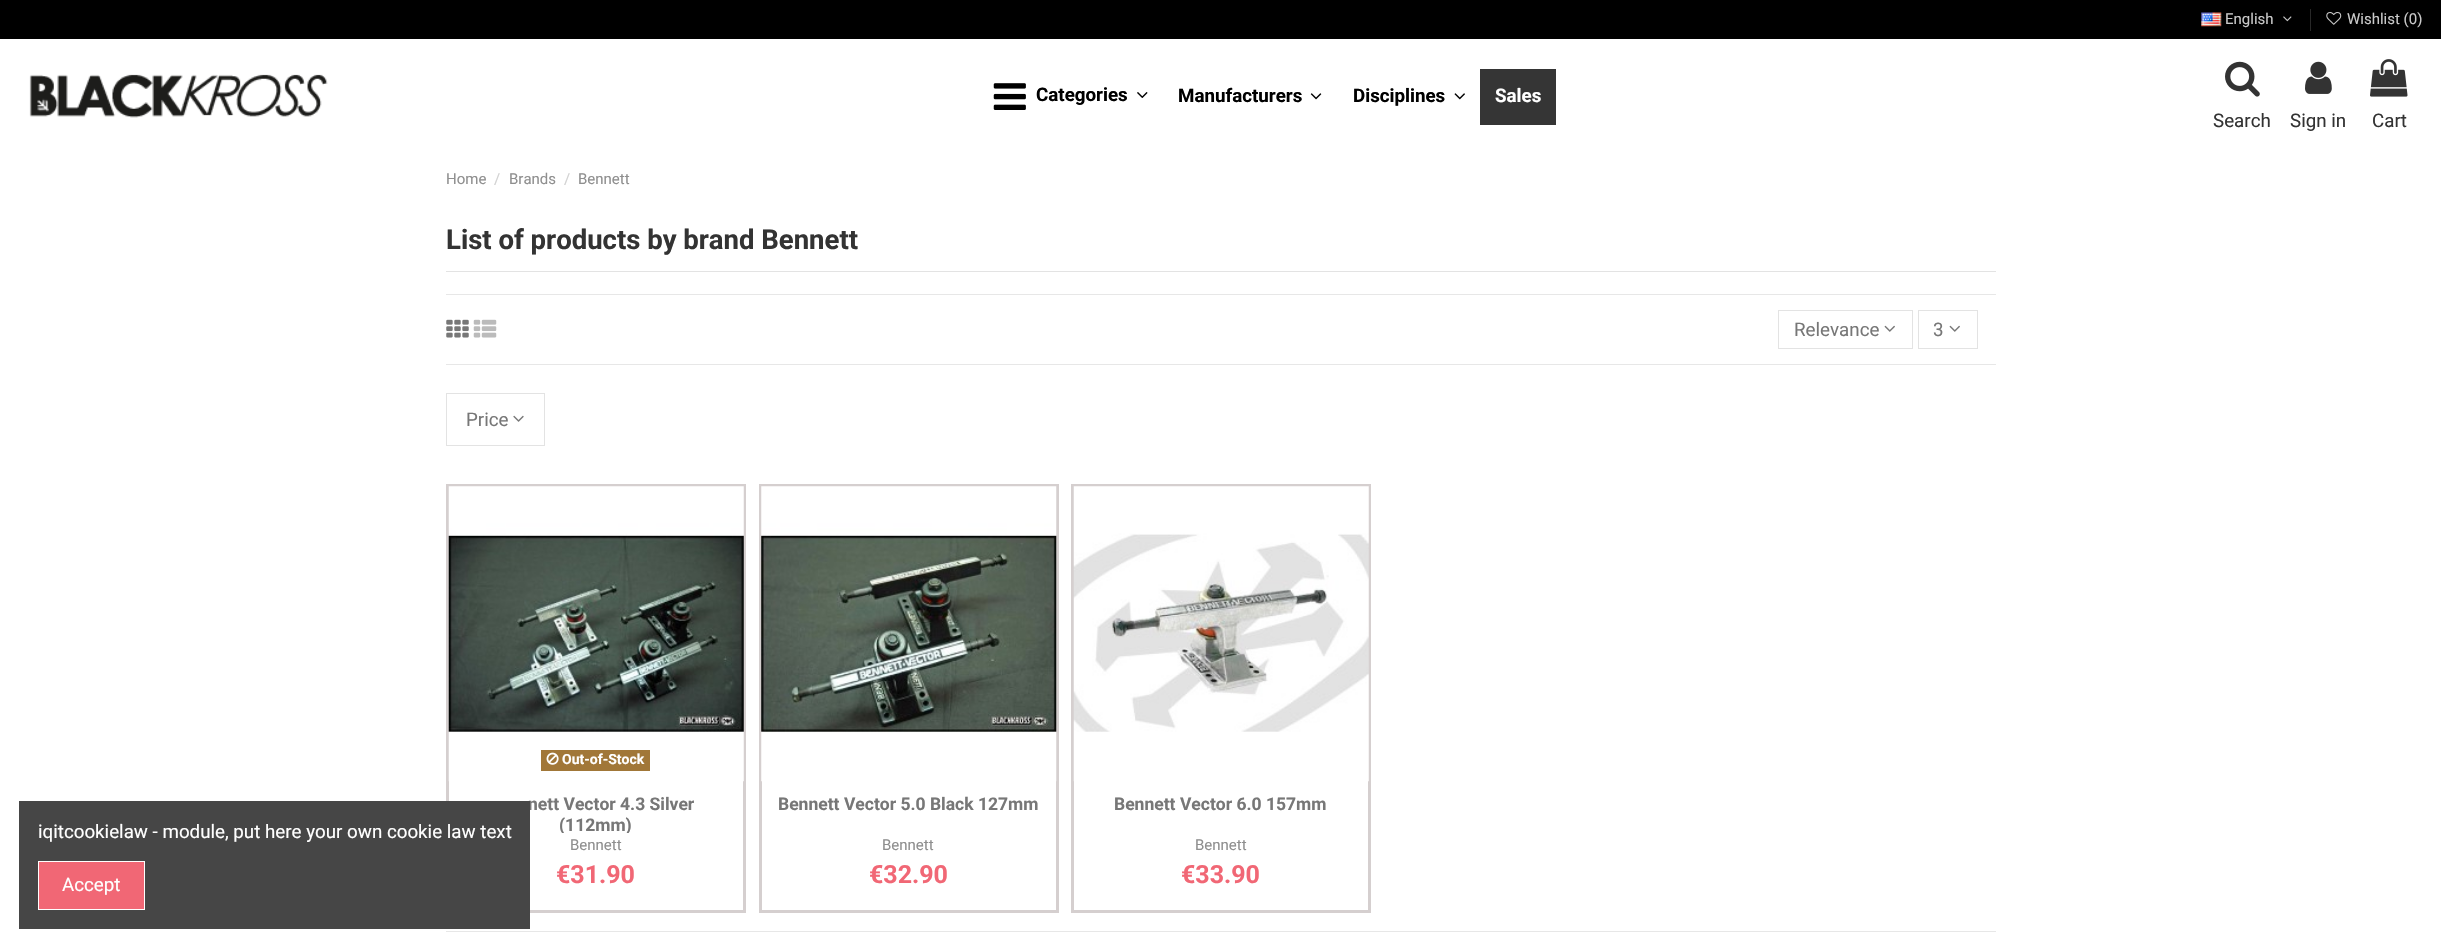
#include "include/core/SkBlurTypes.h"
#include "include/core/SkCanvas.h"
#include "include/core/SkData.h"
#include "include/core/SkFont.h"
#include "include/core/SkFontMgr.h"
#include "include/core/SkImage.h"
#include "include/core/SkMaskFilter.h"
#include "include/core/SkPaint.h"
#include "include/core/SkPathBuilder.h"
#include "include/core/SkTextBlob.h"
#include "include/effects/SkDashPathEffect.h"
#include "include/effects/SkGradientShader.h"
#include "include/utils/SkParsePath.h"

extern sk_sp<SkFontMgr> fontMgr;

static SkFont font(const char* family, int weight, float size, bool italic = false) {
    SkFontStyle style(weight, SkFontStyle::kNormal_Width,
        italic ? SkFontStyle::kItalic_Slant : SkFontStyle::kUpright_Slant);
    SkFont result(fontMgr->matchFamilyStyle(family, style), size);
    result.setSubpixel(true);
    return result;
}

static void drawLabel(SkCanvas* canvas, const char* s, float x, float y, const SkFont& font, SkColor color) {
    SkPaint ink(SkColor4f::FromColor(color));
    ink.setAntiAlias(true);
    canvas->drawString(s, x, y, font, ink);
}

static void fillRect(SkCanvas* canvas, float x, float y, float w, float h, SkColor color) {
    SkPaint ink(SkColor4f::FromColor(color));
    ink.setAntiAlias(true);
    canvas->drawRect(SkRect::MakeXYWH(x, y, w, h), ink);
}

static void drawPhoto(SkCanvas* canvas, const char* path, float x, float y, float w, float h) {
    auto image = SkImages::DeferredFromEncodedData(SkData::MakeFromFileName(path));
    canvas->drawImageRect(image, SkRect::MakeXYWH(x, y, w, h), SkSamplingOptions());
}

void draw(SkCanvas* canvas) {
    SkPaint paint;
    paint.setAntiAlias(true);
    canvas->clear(0xFFFFFFFF);
    paint.setStroke(true);
    paint.setStrokeWidth(3);
    paint.setColor(0xFFD5CFCF);
    canvas->drawRect(SkRect::MakeXYWH(447.5f, 485.5f, 297, 426), paint);
    SkFont font1 = font("Roboto", 700, 17.5f);
    drawLabel(canvas, "nett Vector 4.3 Silver", 528, 810, font1, 0xFF777777);
    fillRect(canvas, 19, 801, 511, 128, 0xFF464646);
    SkFont font2 = font("Roboto", 400, 18.75f);
    drawLabel(canvas, "iqitcookielaw - module, put here your own cookie law text", 38, 838, font2, 0xFFFFFFFF);
    paint.setStroke(false);
    paint.setColor(0xFFF16775);
    canvas->drawRect(SkRect::MakeXYWH(38.5f, 861.5f, 106, 48), paint);
    paint.setStroke(true);
    paint.setStrokeWidth(1);
    paint.setColor(0xFFFFFFFF);
    canvas->drawRect(SkRect::MakeXYWH(38.5f, 861.5f, 106, 48), paint);
    drawLabel(canvas, "Accept", 62, 891, font2, 0xFFFFFFFF);
    fillRect(canvas, 0, 0, 2441, 39, 0xFF000000);
    drawPhoto(canvas, "assets/img1.png", 2201, 12, 21, 15);
    SkFont font3 = font("Roboto", 400, 15);
    drawLabel(canvas, "English", 2225, 24, font3, 0xFFC9C9C9);
    drawPhoto(canvas, "assets/img2.png", 2283, 16, 9, 6);
    fillRect(canvas, 2310, 9, 1, 22, 0xFF282828);
    drawPhoto(canvas, "assets/img3.png", 2326, 12, 16, 13);
    drawLabel(canvas, "Wishlist (0)", 2347, 24, font3, 0xFFC9C9C9);
    drawPhoto(canvas, "assets/img4.png", 29, 74, 299, 44);
    drawPhoto(canvas, "assets/img5.png", 993, 83, 33, 27);
    SkFont font4 = font("Roboto", 700, 18.75f);
    drawLabel(canvas, "Categories", 1036, 101, font4, 0xFF000000);
    drawPhoto(canvas, "assets/img6.png", 1137, 92, 11, 6);
    drawLabel(canvas, "Manufacturers", 1178, 102, font4, 0xFF000000);
    drawPhoto(canvas, "assets/img7.png", 1310, 93, 12, 7);
    drawLabel(canvas, "Disciplines", 1353, 102, font4, 0xFF000000);
    drawPhoto(canvas, "assets/img8.png", 1454, 93, 11, 7);
    fillRect(canvas, 1480, 69, 76, 56, 0xFF353535);
    drawLabel(canvas, "Sales", 1495, 102, font4, 0xFFFFFFFF);
    drawPhoto(canvas, "assets/img9.png", 2225, 61, 35, 36);
    drawLabel(canvas, "Search", 2213, 127, font2, 0xFF333333);
    drawPhoto(canvas, "assets/img10.png", 2305, 61, 27, 33);
    drawLabel(canvas, "Sign in", 2290, 127, font2, 0xFF333333);
    drawPhoto(canvas, "assets/img11.png", 2370, 59, 38, 38);
    drawLabel(canvas, "Cart", 2372, 127, font2, 0xFF333333);
    drawLabel(canvas, "Home", 446, 184, font3, 0xFF8F8F8F);
    drawLabel(canvas, "/", 494, 184, font3, 0xFFD2D2D2);
    drawLabel(canvas, "Brands", 509, 184, font3, 0xFF8F8F8F);
    drawLabel(canvas, "/", 564, 184, font3, 0xFFD2D2D2);
    drawLabel(canvas, "Bennett", 578, 184, font3, 0xFF8F8F8F);
    fillRect(canvas, 446, 271, 1550, 1, 0xFFE3E3E3);
    SkFont font5 = font("Roboto", 700, 27.5f);
    drawLabel(canvas, "List of products by brand Bennett", 446, 249, font5, 0xFF333333);
    fillRect(canvas, 446, 294, 1550, 1, 0xFFE7E7E7);
    fillRect(canvas, 446, 364, 1550, 1, 0xFFE7E7E7);
    drawPhoto(canvas, "assets/img12.png", 446, 319, 23, 19);
    drawPhoto(canvas, "assets/img13.png", 473, 319, 24, 19);
    paint.setColor(0xFFE3E3E3);
    canvas->drawRect(SkRect::MakeXYWH(1778.5f, 310.5f, 134, 38), paint);
    drawLabel(canvas, "Relevance", 1794, 336, font2, 0xFF777777);
    drawPhoto(canvas, "assets/img14.png", 1884, 325, 11, 7);
    canvas->drawRect(SkRect::MakeXYWH(1918.5f, 310.5f, 59, 38), paint);
    drawLabel(canvas, "3", 1933, 336, font2, 0xFF777777);
    drawPhoto(canvas, "assets/img14.png", 1949, 325, 11, 7);
    canvas->drawRect(SkRect::MakeXYWH(446.5f, 393.5f, 98, 52), paint);
    drawLabel(canvas, "Price", 466, 426, font2, 0xFF777777);
    drawPhoto(canvas, "assets/img15.png", 513, 415, 11, 7);
    drawPhoto(canvas, "assets/img16.png", 448, 486, 296, 296);
    fillRect(canvas, 541, 750, 109, 21, 0xFFA17738);
    drawPhoto(canvas, "assets/img17.png", 546, 752, 13, 13);
    SkFont font6 = font("Roboto", 700, 14);
    drawLabel(canvas, "Out-of-Stock", 562, 764, font6, 0xFFFFFFFF);
    canvas->save();
    canvas->clipRect(SkRect::MakeXYWH(461, 794, 270, 39));
    drawLabel(canvas, "(112mm)", 559, 831, font1, 0xFF777777);
    canvas->restore();
    drawLabel(canvas, "Bennett", 570, 850, font3, 0xFF8F8F8F);
    SkFont font7 = font("Roboto", 700, 25);
    drawLabel(canvas, "€31.90", 556, 883, font7, 0xFFF16775);
    paint.setStrokeWidth(3);
    paint.setColor(0xFFD5CFCF);
    canvas->drawRect(SkRect::MakeXYWH(760.5f, 485.5f, 297, 426), paint);
    drawPhoto(canvas, "assets/img18.png", 761, 486, 296, 296);
    drawLabel(canvas, "Bennett Vector 5.0 Black 127mm", 778, 810, font1, 0xFF777777);
    drawLabel(canvas, "Bennett", 882, 850, font3, 0xFF8F8F8F);
    drawLabel(canvas, "€32.90", 869, 883, font7, 0xFFF16775);
    canvas->drawRect(SkRect::MakeXYWH(1072.5f, 485.5f, 297, 426), paint);
    drawPhoto(canvas, "assets/img19.png", 1073, 486, 296, 296);
    drawLabel(canvas, "Bennett Vector 6.0 157mm", 1114, 810, font1, 0xFF777777);
    drawLabel(canvas, "Bennett", 1195, 850, font3, 0xFF8F8F8F);
    drawLabel(canvas, "€33.90", 1181, 883, font7, 0xFFF16775);
    fillRect(canvas, 446, 931, 1550, 1, 0xFFE7E7E7);
}
